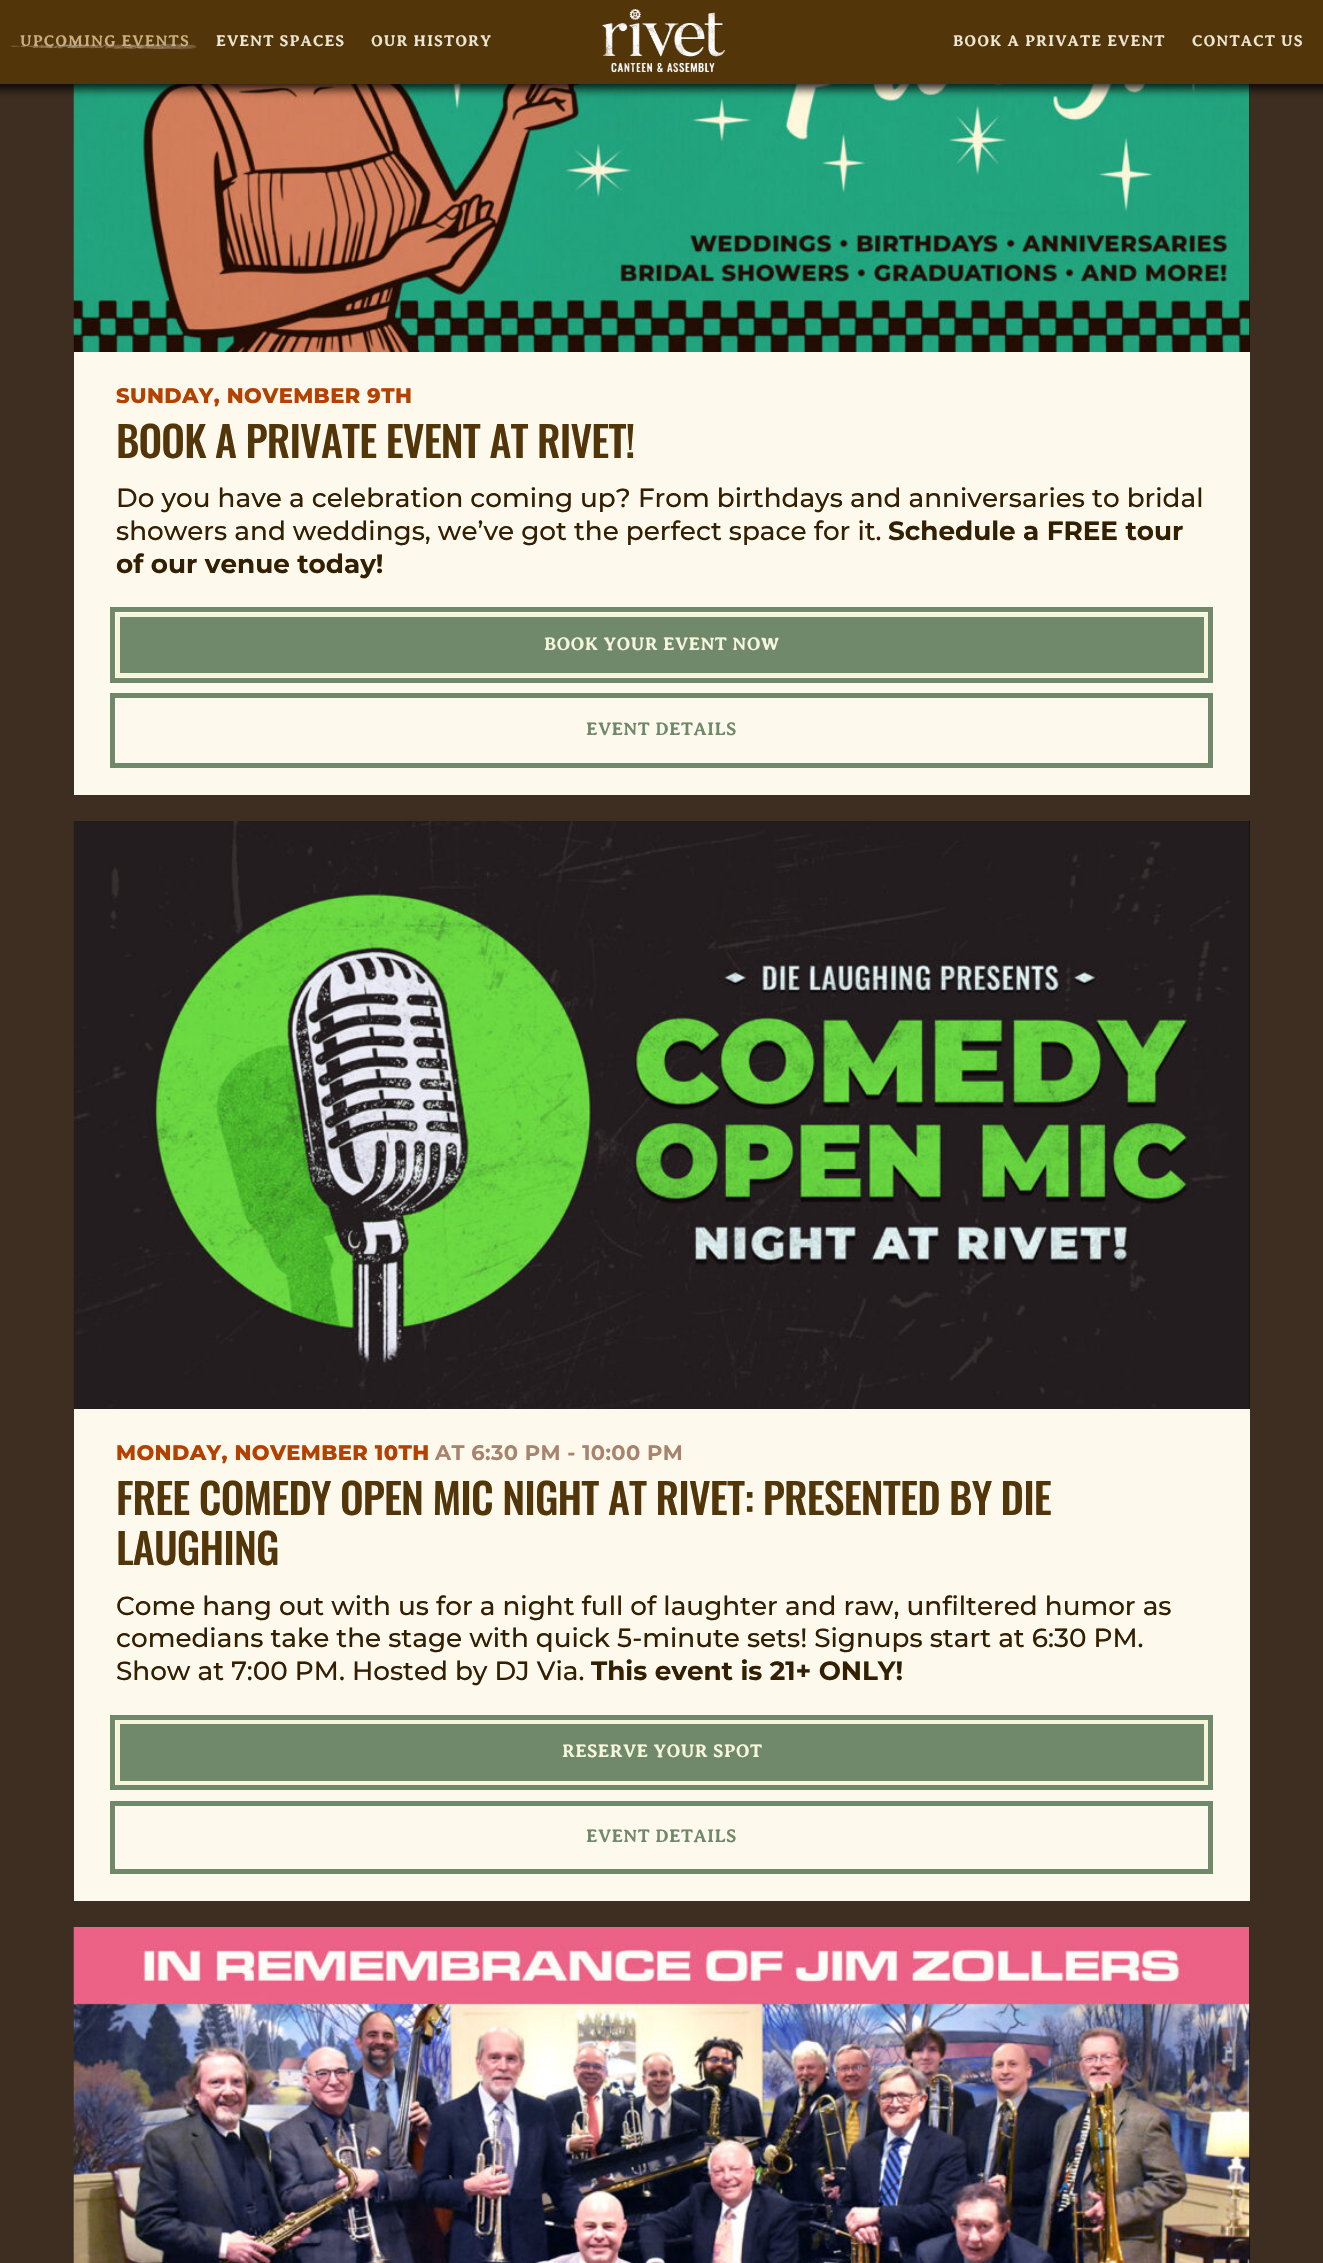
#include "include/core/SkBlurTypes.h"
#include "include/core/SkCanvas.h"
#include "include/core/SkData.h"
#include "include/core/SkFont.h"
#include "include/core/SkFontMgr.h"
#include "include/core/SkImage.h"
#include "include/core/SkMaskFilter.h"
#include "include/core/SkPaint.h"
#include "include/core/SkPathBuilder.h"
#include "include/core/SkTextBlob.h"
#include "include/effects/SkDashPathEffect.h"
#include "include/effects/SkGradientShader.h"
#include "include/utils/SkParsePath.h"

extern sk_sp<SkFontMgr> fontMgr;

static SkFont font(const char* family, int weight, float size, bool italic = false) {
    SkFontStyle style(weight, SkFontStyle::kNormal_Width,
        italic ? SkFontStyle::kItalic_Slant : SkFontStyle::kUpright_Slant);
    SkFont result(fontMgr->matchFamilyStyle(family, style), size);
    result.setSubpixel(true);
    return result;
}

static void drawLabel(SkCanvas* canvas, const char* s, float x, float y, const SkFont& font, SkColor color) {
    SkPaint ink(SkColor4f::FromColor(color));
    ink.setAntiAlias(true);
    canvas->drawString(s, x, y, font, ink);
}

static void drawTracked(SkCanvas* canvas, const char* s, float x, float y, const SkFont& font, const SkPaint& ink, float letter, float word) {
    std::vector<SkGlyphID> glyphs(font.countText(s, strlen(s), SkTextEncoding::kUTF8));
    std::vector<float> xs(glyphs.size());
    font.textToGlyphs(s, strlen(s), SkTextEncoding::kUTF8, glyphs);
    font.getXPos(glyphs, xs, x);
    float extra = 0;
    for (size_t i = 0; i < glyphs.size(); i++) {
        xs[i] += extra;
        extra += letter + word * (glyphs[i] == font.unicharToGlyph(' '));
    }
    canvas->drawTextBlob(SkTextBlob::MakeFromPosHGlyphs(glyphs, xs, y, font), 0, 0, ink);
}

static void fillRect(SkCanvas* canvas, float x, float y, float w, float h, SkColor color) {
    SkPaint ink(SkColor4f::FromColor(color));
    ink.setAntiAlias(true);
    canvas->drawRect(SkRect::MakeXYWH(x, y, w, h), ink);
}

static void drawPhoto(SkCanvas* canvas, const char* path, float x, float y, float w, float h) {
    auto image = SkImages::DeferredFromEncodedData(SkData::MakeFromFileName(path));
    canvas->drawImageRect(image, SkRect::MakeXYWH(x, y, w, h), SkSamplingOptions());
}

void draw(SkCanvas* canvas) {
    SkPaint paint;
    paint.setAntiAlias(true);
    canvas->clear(0xFF3E2E22);
    fillRect(canvas, 1249, 84, 1, 268, 0xFF130E05);
    drawPhoto(canvas, "assets/img3.png", 73, 84, 1177, 268);
    paint.setColor(0xD4000000);
    paint.setMaskFilter(SkMaskFilter::MakeBlur(kNormal_SkBlurStyle, 4.5f));
    canvas->drawRect(SkRect::MakeXYWH(-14, -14, 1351, 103), paint);
    paint.setMaskFilter(nullptr);
    fillRect(canvas, 0, 0, 1323, 84, 0xFF523509);
    drawPhoto(canvas, "assets/img1.png", 10, 44, 187, 6);
    SkFont font1 = font("Averia Serif Libre", 700, 15.75f);
    paint.setColor(0xFFC7AE82);
    drawTracked(canvas, "UPCOMING EVENTS", 20, 46, font1, paint, 1.05f, 0);
    paint.setColor(0xFFEBE5D1);
    drawTracked(canvas, "EVENT SPACES", 216, 46, font1, paint, 1.05f, 0);
    drawTracked(canvas, "OUR HISTORY", 371, 46, font1, paint, 1.05f, 0);
    drawPhoto(canvas, "assets/img2.png", 602, 8, 123, 65);
    drawTracked(canvas, "BOOK A PRIVATE EVENT", 953, 46, font1, paint, 1.05f, 0);
    drawTracked(canvas, "CONTACT US", 1192, 46, font1, paint, 1.05f, 0);
    fillRect(canvas, 74, 352, 1176, 443, 0xFFFDF9ED);
    SkFont font2 = font("Montserrat", 800, 21);
    paint.setColor(0xFFB44100);
    drawTracked(canvas, "SUNDAY, NOVEMBER 9TH", 116, 403, font2, paint, 0.4f, 0);
    SkFont font3 = font("Oswald", 500, 42);
    paint.setColor(0xFF523509);
    drawTracked(canvas, "BOOK A PRIVATE EVENT AT RIVET!", 116, 458, font3, paint, -0.85f, 0);
    SkFont font4 = font("Montserrat", 500, 26.25f);
    drawLabel(canvas, "Do you have a celebration coming up? From birthdays and anniversaries to bridal", 116, 507, font4, 0xFF331F01);
    drawLabel(canvas, "showers and weddings, we’ve got the perfect space for it.", 116, 540, font4, 0xFF331F01);
    SkFont font5 = font("Montserrat", 700, 26.25f);
    drawLabel(canvas, "Schedule a FREE tour", 888, 540, font5, 0xFF331F01);
    drawLabel(canvas, "of our venue today!", 116, 573, font5, 0xFF331F01);
    paint.setStroke(true);
    paint.setStrokeWidth(5);
    paint.setColor(0xFF71896B);
    canvas->drawRect(SkRect::MakeXYWH(112.5f, 609.5f, 1098, 71), paint);
    paint.setStroke(false);
    canvas->drawRect(SkRect::MakeXYWH(118, 615, 1088, 60), paint);
    paint.setStroke(true);
    paint.setStrokeWidth(4);
    paint.setColor(0xFFF6F6DB);
    canvas->drawRect(SkRect::MakeXYWH(118, 615, 1088, 60), paint);
    SkFont font6 = font("Averia Serif Libre", 700, 18.4f);
    paint.setStroke(false);
    drawTracked(canvas, "BOOK YOUR EVENT NOW", 544, 650, font6, paint, 0.4f, 0);
    paint.setStroke(true);
    paint.setStrokeWidth(5);
    paint.setColor(0xFF71896B);
    canvas->drawRect(SkRect::MakeXYWH(112.5f, 695.5f, 1098, 70), paint);
    paint.setStroke(false);
    drawTracked(canvas, "EVENT DETAILS", 586, 735, font6, paint, 0.4f, 0);
    fillRect(canvas, 74, 1409, 1176, 492, 0xFFFDF9ED);
    fillRect(canvas, 1249, 821, 1, 588, 0xFF130E05);
    drawPhoto(canvas, "assets/img4.png", 73, 821, 1177, 588);
    paint.setColor(0xFFB44100);
    drawTracked(canvas, "MONDAY, NOVEMBER 10TH", 116, 1460, font2, paint, 0.4f, 0);
    SkFont font7 = font("Montserrat", 700, 21);
    paint.setColor(0xFFA8836E);
    drawTracked(canvas, "AT 6:30 PM - 10:00 PM", 435, 1460, font7, paint, 0.4f, 0);
    paint.setColor(0xFF523509);
    drawTracked(canvas, "FREE COMEDY OPEN MIC NIGHT AT RIVET: PRESENTED BY DIE", 116, 1515, font3, paint, -0.85f, 0);
    drawTracked(canvas, "LAUGHING", 116, 1565, font3, paint, -0.85f, 0);
    drawLabel(canvas, "Come hang out with us for a night full of laughter and raw, unfiltered humor as", 116, 1615, font4, 0xFF331F01);
    drawLabel(canvas, "comedians take the stage with quick 5-minute sets! Signups start at 6:30 PM.", 116, 1647, font4, 0xFF331F01);
    drawLabel(canvas, "Show at 7:00 PM. Hosted by DJ Via.", 116, 1680, font4, 0xFF331F01);
    drawLabel(canvas, "This event is 21+ ONLY!", 591, 1680, font5, 0xFF331F01);
    paint.setStroke(true);
    paint.setColor(0xFF71896B);
    canvas->drawRect(SkRect::MakeXYWH(112.5f, 1717.5f, 1098, 70), paint);
    paint.setStroke(false);
    canvas->drawRect(SkRect::MakeXYWH(118, 1722, 1088, 61), paint);
    paint.setStroke(true);
    paint.setStrokeWidth(4);
    paint.setColor(0xFFF6F6DB);
    canvas->drawRect(SkRect::MakeXYWH(118, 1722, 1088, 61), paint);
    paint.setStroke(false);
    drawTracked(canvas, "RESERVE YOUR SPOT", 562, 1757, font6, paint, 0.4f, 0);
    paint.setStroke(true);
    paint.setStrokeWidth(5);
    paint.setColor(0xFF71896B);
    canvas->drawRect(SkRect::MakeXYWH(112.5f, 1803.5f, 1098, 68), paint);
    paint.setStroke(false);
    drawTracked(canvas, "EVENT DETAILS", 586, 1842, font6, paint, 0.4f, 0);
    fillRect(canvas, 1249, 1927, 1, 336, 0xFF130E05);
    drawPhoto(canvas, "assets/img5.png", 73, 1927, 1177, 336);
}
